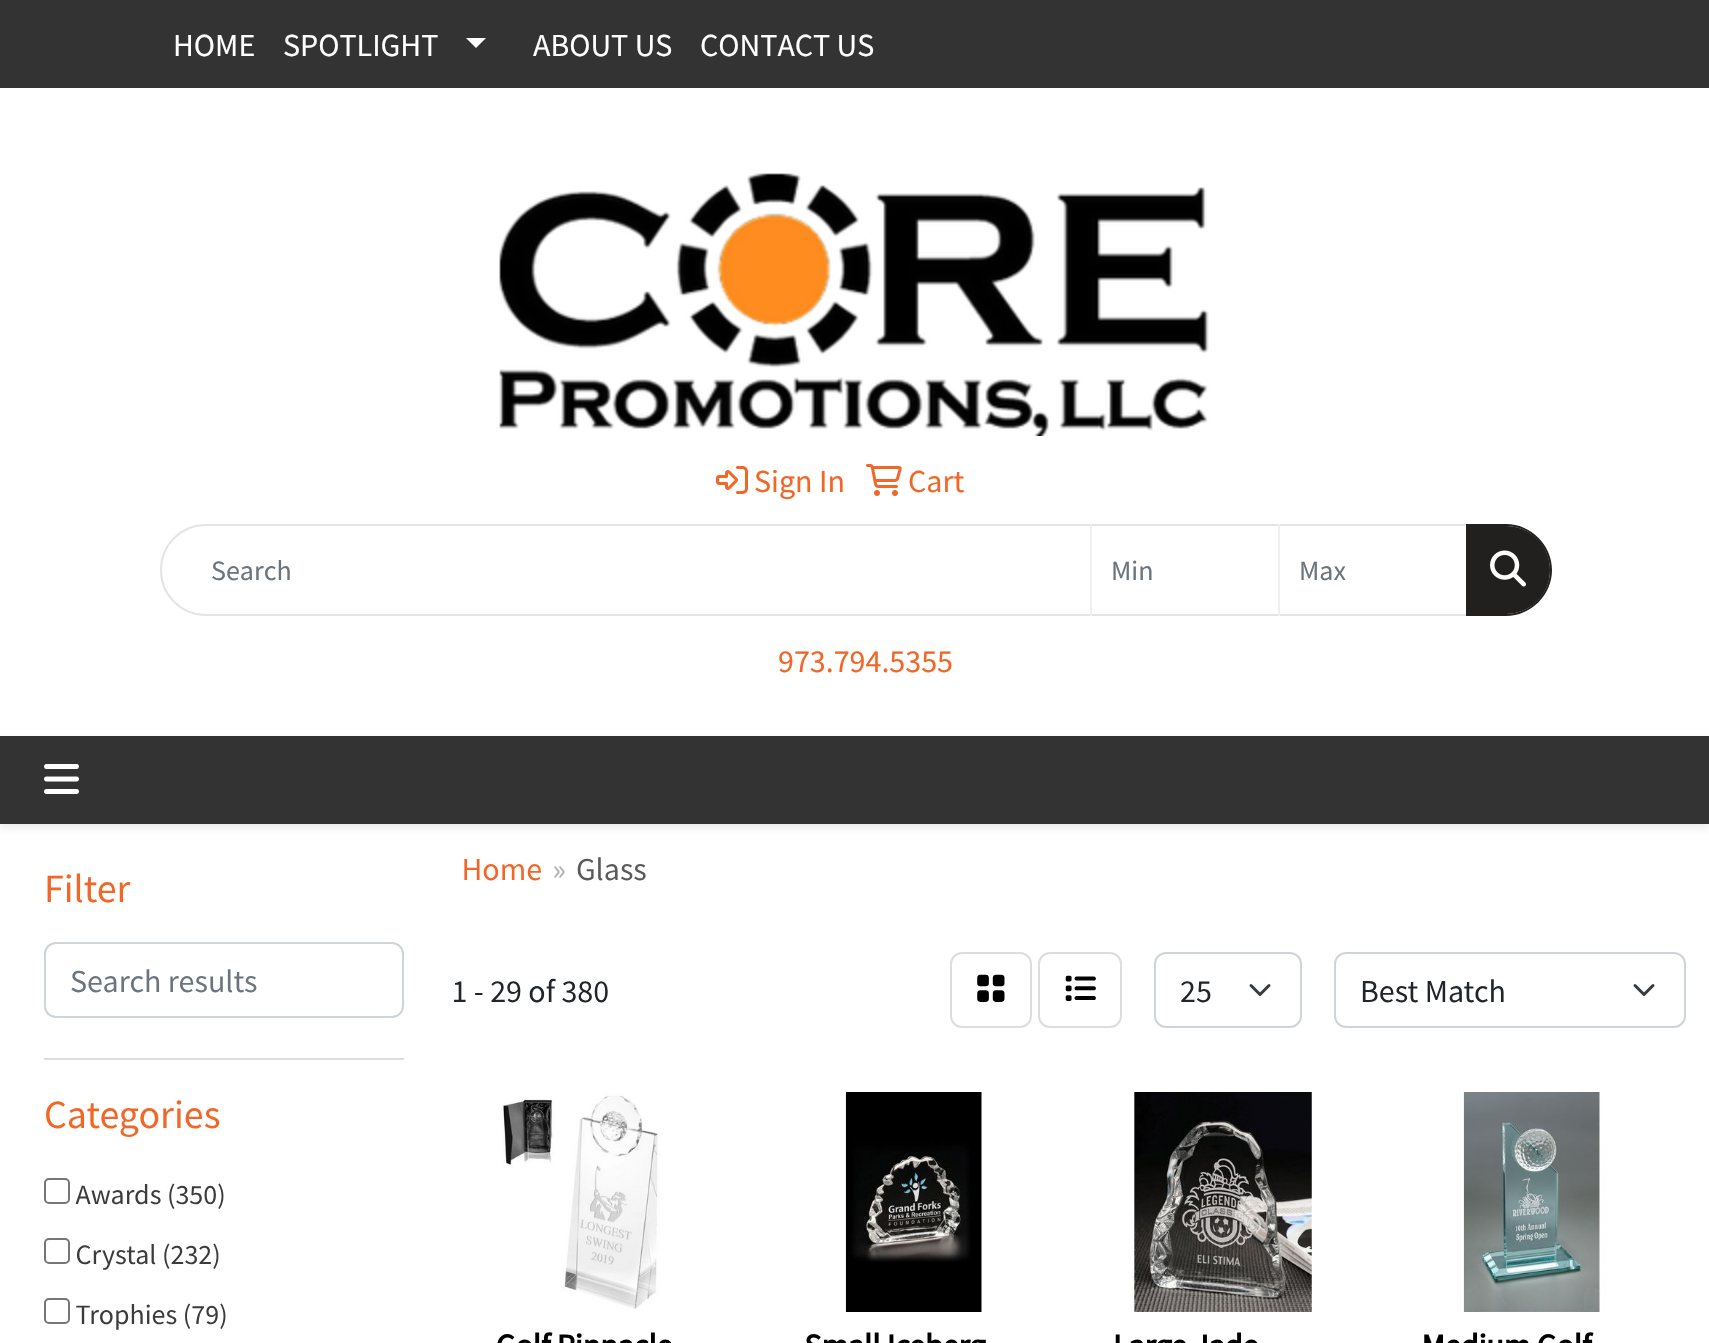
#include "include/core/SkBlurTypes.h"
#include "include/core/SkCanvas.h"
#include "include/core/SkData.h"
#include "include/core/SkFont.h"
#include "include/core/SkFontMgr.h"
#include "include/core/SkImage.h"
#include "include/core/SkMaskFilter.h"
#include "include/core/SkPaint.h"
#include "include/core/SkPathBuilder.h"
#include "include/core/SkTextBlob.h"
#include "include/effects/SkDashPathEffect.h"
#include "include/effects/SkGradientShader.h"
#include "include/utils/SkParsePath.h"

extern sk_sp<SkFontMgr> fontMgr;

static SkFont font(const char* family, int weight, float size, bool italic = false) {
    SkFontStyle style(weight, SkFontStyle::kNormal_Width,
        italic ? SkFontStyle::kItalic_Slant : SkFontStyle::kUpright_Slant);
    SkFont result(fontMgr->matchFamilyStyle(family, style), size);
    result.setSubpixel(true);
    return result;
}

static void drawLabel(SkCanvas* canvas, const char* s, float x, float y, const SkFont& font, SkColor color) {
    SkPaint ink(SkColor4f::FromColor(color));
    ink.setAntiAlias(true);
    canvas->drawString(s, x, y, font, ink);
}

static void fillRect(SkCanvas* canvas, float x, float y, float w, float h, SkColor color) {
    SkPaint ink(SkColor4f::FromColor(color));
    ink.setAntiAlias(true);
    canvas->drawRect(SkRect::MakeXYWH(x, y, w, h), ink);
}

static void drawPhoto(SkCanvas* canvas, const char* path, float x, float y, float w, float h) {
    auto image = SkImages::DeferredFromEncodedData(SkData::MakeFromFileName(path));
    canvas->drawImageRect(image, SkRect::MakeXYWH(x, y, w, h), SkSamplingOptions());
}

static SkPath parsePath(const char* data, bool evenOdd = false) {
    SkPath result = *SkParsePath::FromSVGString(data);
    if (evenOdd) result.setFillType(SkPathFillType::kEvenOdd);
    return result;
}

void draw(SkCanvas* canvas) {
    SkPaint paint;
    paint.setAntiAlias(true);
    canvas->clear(0xFFFFFFFF);
    fillRect(canvas, 0, 0, 1709, 88, 0xFF333333);
    SkFont font1 = font("Source Sans Pro", 400, 32);
    drawLabel(canvas, "HOME", 173, 56, font1, 0xFFFFFFFF);
    drawLabel(canvas, "SPOTLIGHT", 283, 56, font1, 0xFFFFFFFF);
    paint.setColor(0xFFFFFFFF);
    canvas->drawPath(parsePath("M466 38H486L476 48Z"), paint);
    drawLabel(canvas, "ABOUT US", 533, 56, font1, 0xFFFFFFFF);
    drawLabel(canvas, "CONTACT US", 700, 56, font1, 0xFFFFFFFF);
    drawPhoto(canvas, "assets/img1.png", 499, 173, 710, 263);
    drawPhoto(canvas, "assets/img2.png", 716, 466, 32, 28);
    drawLabel(canvas, "Sign In", 754, 492, font1, 0xFFF16728);
    drawPhoto(canvas, "assets/img3.png", 866, 464, 36, 32);
    drawLabel(canvas, "Cart", 908, 492, font1, 0xFFF16728);
    paint.setStroke(true);
    paint.setStrokeWidth(2);
    paint.setColor(0xFFE4E4E4);
    canvas->drawPath(parsePath("M206 525H1091V615H206C181 615 161 595 161 570C161 545 181 525 206 525Z"), paint);
    SkFont font2 = font("Source Sans Pro", 400, 28);
    drawLabel(canvas, "Search", 211, 580, font2, 0xFF6C757D);
    fillRect(canvas, 1090, 524, 378, 2, 0xFFE4E4E4);
    fillRect(canvas, 1090, 614, 378, 2, 0xFFE4E4E4);
    fillRect(canvas, 1090, 524, 2, 92, 0xFFEFEFEF);
    drawLabel(canvas, "Min", 1111, 580, font2, 0xFF6C757D);
    fillRect(canvas, 1278, 524, 2, 92, 0xFFEFEFEF);
    drawLabel(canvas, "Max", 1299, 580, font2, 0xFF6C757D);
    paint.setStroke(false);
    paint.setColor(0xFF221F1F);
    canvas->drawPath(parsePath("M1466 526H1506C1530.5 526 1550 545.5 1550 570C1550 594.5 1530.5 614 1506 614H1466Z"), paint);
    canvas->drawPath(parsePath("M1466 524H1506C1531 524 1552 545 1552 570C1552 595 1531 616 1506 616H1466ZM1466 526H1506C1530 526 1550 546 1550 570C1550 594 1530 614 1506 614H1466Z", true), paint);
    drawPhoto(canvas, "assets/img4.png", 1490, 550, 36, 37);
    drawLabel(canvas, "973.794.5355", 778, 672, font1, 0xFFF16728);
    paint.setColor(0x12000000);
    paint.setMaskFilter(SkMaskFilter::MakeBlur(kNormal_SkBlurStyle, 4));
    canvas->drawRect(SkRect::MakeXYWH(0, 740, 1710, 88), paint);
    paint.setMaskFilter(nullptr);
    fillRect(canvas, 0, 736, 1709, 88, 0xFF333333);
    drawPhoto(canvas, "assets/img5.png", 44, 764, 35, 30);
    drawPhoto(canvas, "assets/img6.png", 44, 857, 1642, 486);
}
